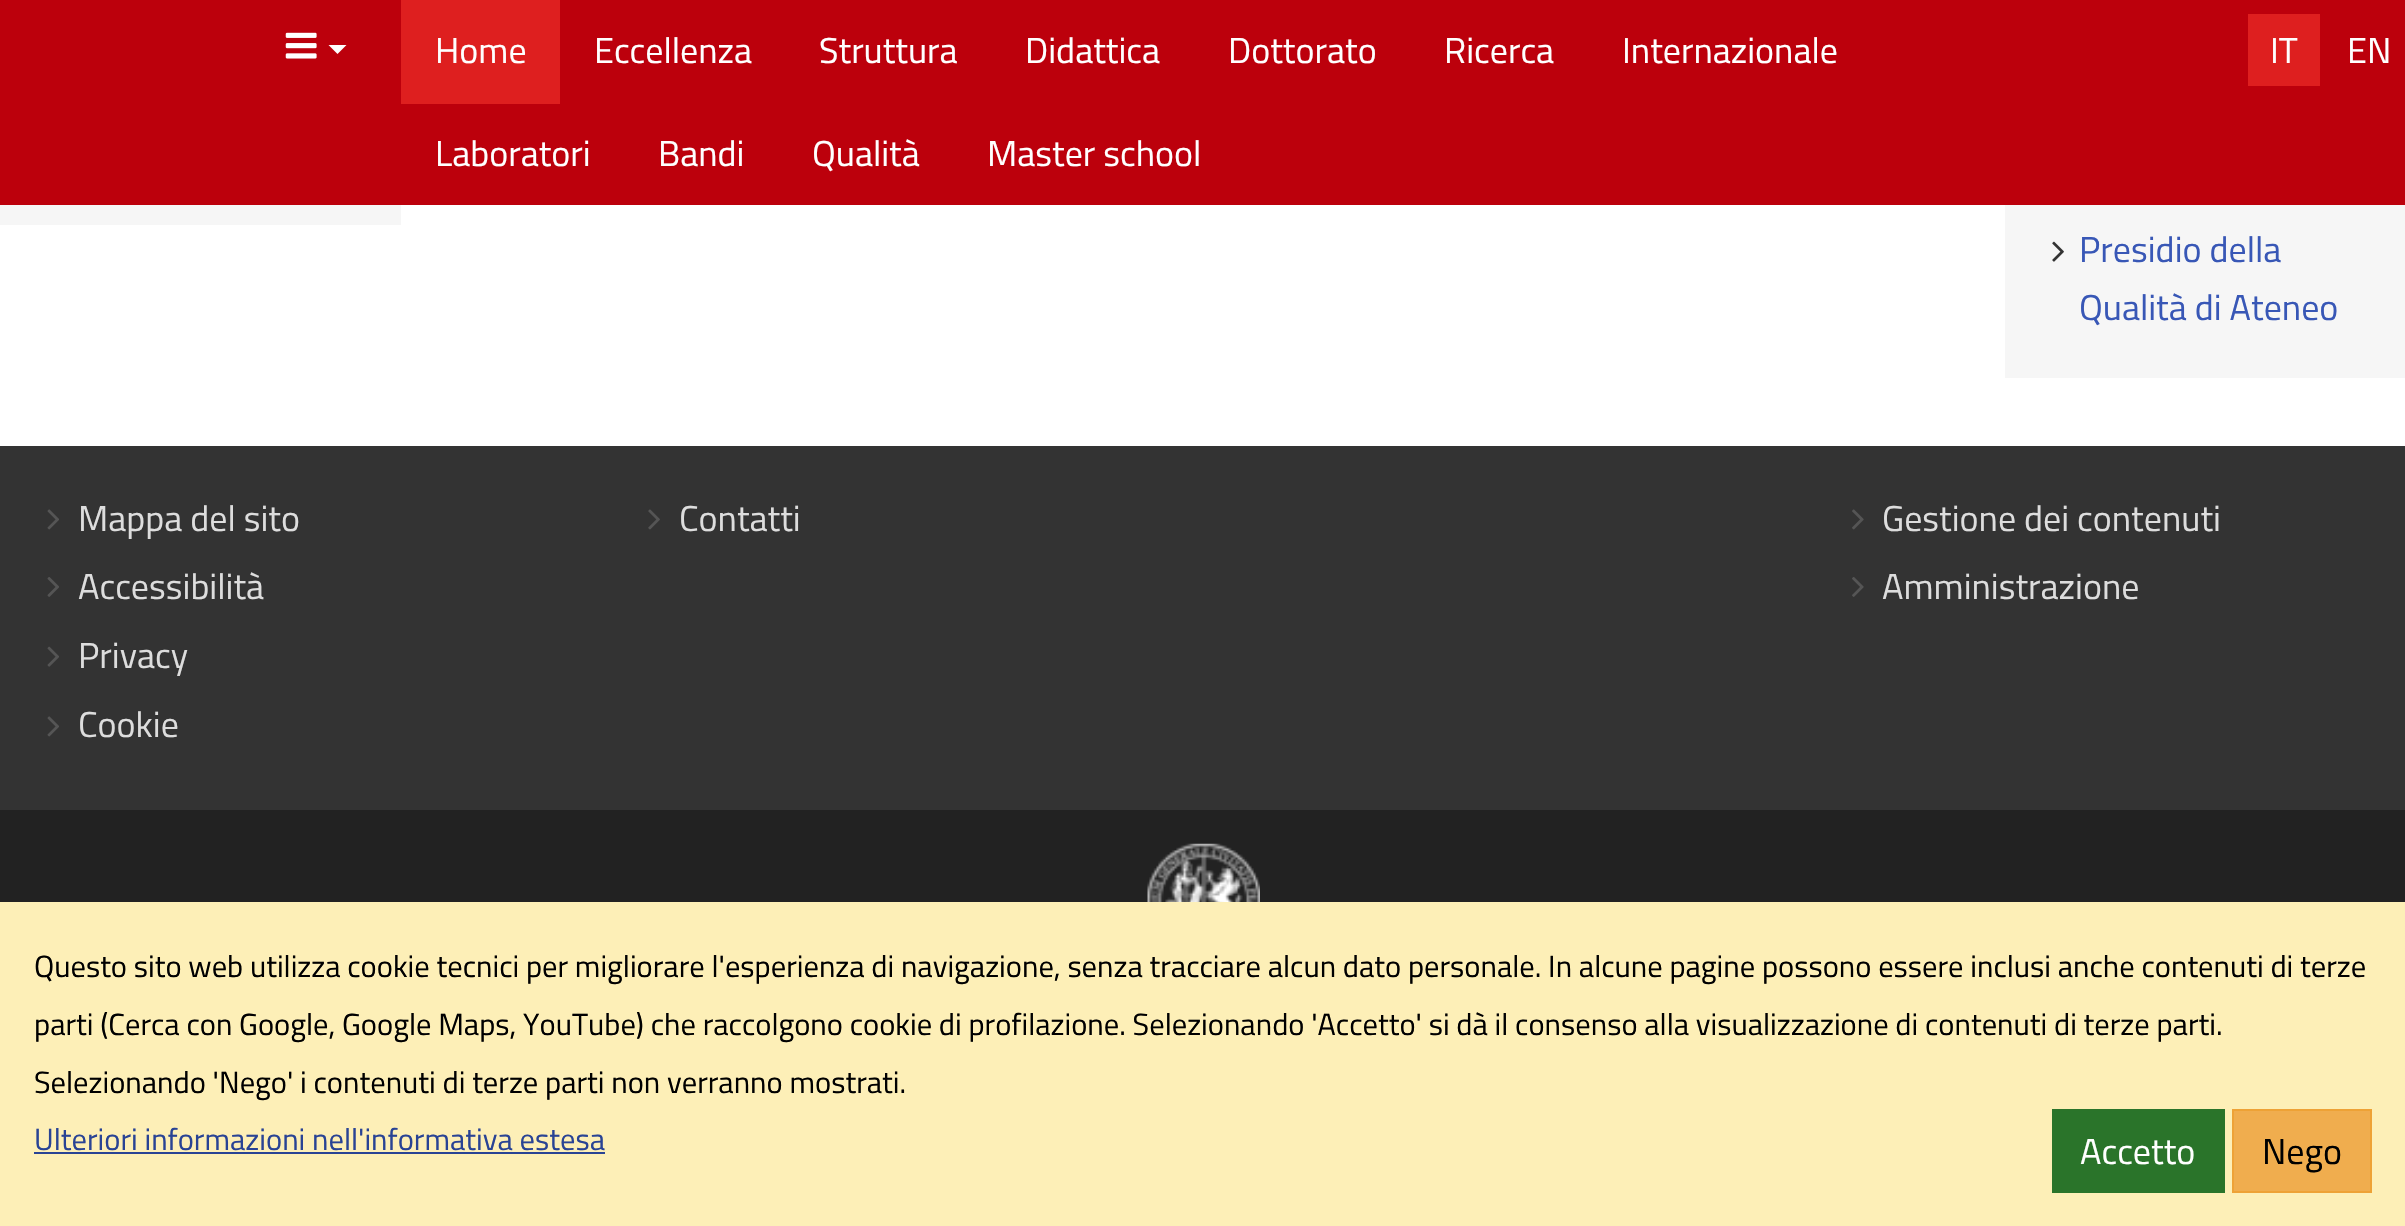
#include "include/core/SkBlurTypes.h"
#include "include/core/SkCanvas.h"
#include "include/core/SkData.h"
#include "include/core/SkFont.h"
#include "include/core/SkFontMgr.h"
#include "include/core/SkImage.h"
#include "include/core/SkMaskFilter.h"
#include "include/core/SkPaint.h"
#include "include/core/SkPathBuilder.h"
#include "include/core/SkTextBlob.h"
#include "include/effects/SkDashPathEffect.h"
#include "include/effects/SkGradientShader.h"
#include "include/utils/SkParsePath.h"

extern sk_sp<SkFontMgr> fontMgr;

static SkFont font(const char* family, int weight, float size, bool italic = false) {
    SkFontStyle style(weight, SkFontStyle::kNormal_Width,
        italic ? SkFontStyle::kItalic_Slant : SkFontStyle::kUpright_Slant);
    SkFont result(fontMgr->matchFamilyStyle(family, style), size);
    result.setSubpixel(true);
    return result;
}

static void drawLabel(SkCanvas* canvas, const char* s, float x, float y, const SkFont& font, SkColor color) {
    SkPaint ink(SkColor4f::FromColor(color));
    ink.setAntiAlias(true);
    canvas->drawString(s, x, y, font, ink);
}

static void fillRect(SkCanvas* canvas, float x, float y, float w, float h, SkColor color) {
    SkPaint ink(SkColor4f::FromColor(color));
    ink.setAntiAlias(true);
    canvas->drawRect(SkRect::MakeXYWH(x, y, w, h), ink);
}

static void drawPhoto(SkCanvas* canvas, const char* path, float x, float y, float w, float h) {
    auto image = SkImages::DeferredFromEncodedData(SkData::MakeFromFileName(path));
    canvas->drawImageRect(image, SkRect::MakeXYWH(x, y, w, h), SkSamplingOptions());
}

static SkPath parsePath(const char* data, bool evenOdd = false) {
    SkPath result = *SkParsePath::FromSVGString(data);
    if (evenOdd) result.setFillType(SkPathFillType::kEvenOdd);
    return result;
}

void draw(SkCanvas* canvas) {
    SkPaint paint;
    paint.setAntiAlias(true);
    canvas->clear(0xFFFFFFFF);
    fillRect(canvas, 0, 0, 2405, 205, 0xFFBC000C);
    drawPhoto(canvas, "assets/img1.png", 285, 32, 32, 27);
    paint.setColor(0xFFFFFFFF);
    canvas->drawPath(parsePath("M328.5 45H346.5L337.5 54Z"), paint);
    fillRect(canvas, 401, 0, 159, 104, 0xFFDE1F1F);
    SkFont font1 = font("Titillium Web", 400, 36);
    drawLabel(canvas, "Home", 435, 63, font1, 0xFFFFFFFF);
    drawLabel(canvas, "Eccellenza", 594, 63, font1, 0xFFFFFFFF);
    drawLabel(canvas, "Struttura", 819, 63, font1, 0xFFFFFFFF);
    drawLabel(canvas, "Didattica", 1025, 63, font1, 0xFFFFFFFF);
    drawLabel(canvas, "Dottorato", 1228, 63, font1, 0xFFFFFFFF);
    drawLabel(canvas, "Ricerca", 1444, 63, font1, 0xFFFFFFFF);
    drawLabel(canvas, "Internazionale", 1622, 63, font1, 0xFFFFFFFF);
    drawLabel(canvas, "Laboratori", 435, 166, font1, 0xFFFFFFFF);
    drawLabel(canvas, "Bandi", 658, 166, font1, 0xFFFFFFFF);
    drawLabel(canvas, "Qualità", 812, 166, font1, 0xFFFFFFFF);
    drawLabel(canvas, "Master school", 987, 166, font1, 0xFFFFFFFF);
    fillRect(canvas, 2248, 14, 72, 72, 0xFFDE1F1F);
    drawLabel(canvas, "IT", 2270, 63, font1, 0xFFFFFFFF);
    drawLabel(canvas, "EN", 2347, 63, font1, 0xFFFFFFFF);
    fillRect(canvas, 0, 205, 401, 20, 0xFFF6F6F6);
    fillRect(canvas, 2005, 205, 400, 173, 0xFFF6F6F6);
    drawPhoto(canvas, "assets/img2.png", 2052, 241, 12, 21);
    drawLabel(canvas, "Presidio della", 2079, 262, font1, 0xFF3857B6);
    drawLabel(canvas, "Qualità di Ateneo", 2079, 320, font1, 0xFF3857B6);
    fillRect(canvas, 0, 446, 2405, 364, 0xFF333333);
    drawPhoto(canvas, "assets/img3.png", 47, 509, 12, 21);
    drawLabel(canvas, "Mappa del sito", 78, 531, font1, 0xFFDDDDDD);
    drawPhoto(canvas, "assets/img4.png", 47, 577, 12, 20);
    drawLabel(canvas, "Accessibilità", 78, 599, font1, 0xFFDDDDDD);
    drawPhoto(canvas, "assets/img5.png", 47, 646, 12, 21);
    drawLabel(canvas, "Privacy", 78, 668, font1, 0xFFDDDDDD);
    drawPhoto(canvas, "assets/img3.png", 47, 716, 12, 21);
    drawLabel(canvas, "Cookie", 78, 737, font1, 0xFFDDDDDD);
    drawPhoto(canvas, "assets/img6.png", 648, 509, 12, 21);
    drawLabel(canvas, "Contatti", 679, 531, font1, 0xFFDDDDDD);
    drawPhoto(canvas, "assets/img7.png", 1852, 509, 12, 21);
    drawLabel(canvas, "Gestione dei contenuti", 1882, 531, font1, 0xFFDDDDDD);
    drawPhoto(canvas, "assets/img8.png", 1852, 577, 12, 20);
    drawLabel(canvas, "Amministrazione", 1882, 599, font1, 0xFFDDDDDD);
    fillRect(canvas, 0, 810, 2405, 92, 0xFF222222);
    drawPhoto(canvas, "assets/img9.png", 1147, 843, 113, 59);
    fillRect(canvas, 0, 902, 2405, 324, 0xFFFDEFB7);
    SkFont font2 = font("Titillium Web", 400, 30.6f);
    drawLabel(canvas, "Questo sito web utilizza cookie tecnici per migliorare l'esperienza di navigazione, senza tracciare alcun dato personale. In alcune pagine possono essere inclusi anche contenuti di terze", 34, 977, font2, 0xFF000000);
    drawLabel(canvas, "parti (Cerca con Google, Google Maps, YouTube) che raccolgono cookie di profilazione. Selezionando 'Accetto' si dà il consenso alla visualizzazione di contenuti di terze parti.", 34, 1035, font2, 0xFF000000);
    drawLabel(canvas, "Selezionando 'Nego' i contenuti di terze parti non verranno mostrati.", 34, 1093, font2, 0xFF000000);
    drawLabel(canvas, "Ulteriori informazioni nell'informativa estesa", 34, 1150, font2, 0xFF294394);
    fillRect(canvas, 34, 1152, 571, 2, 0xFF294394);
    fillRect(canvas, 2052, 1109, 173, 84, 0xFF2A742A);
    drawLabel(canvas, "Accetto", 2080, 1164, font1, 0xFFFFFFFF);
    paint.setColor(0xFFF0AD4E);
    canvas->drawRect(SkRect::MakeXYWH(2233, 1110, 138, 82), paint);
    paint.setStroke(true);
    paint.setStrokeWidth(2);
    paint.setColor(0xFFEEA236);
    canvas->drawRect(SkRect::MakeXYWH(2233, 1110, 138, 82), paint);
    drawLabel(canvas, "Nego", 2262, 1164, font1, 0xFF000000);
}
